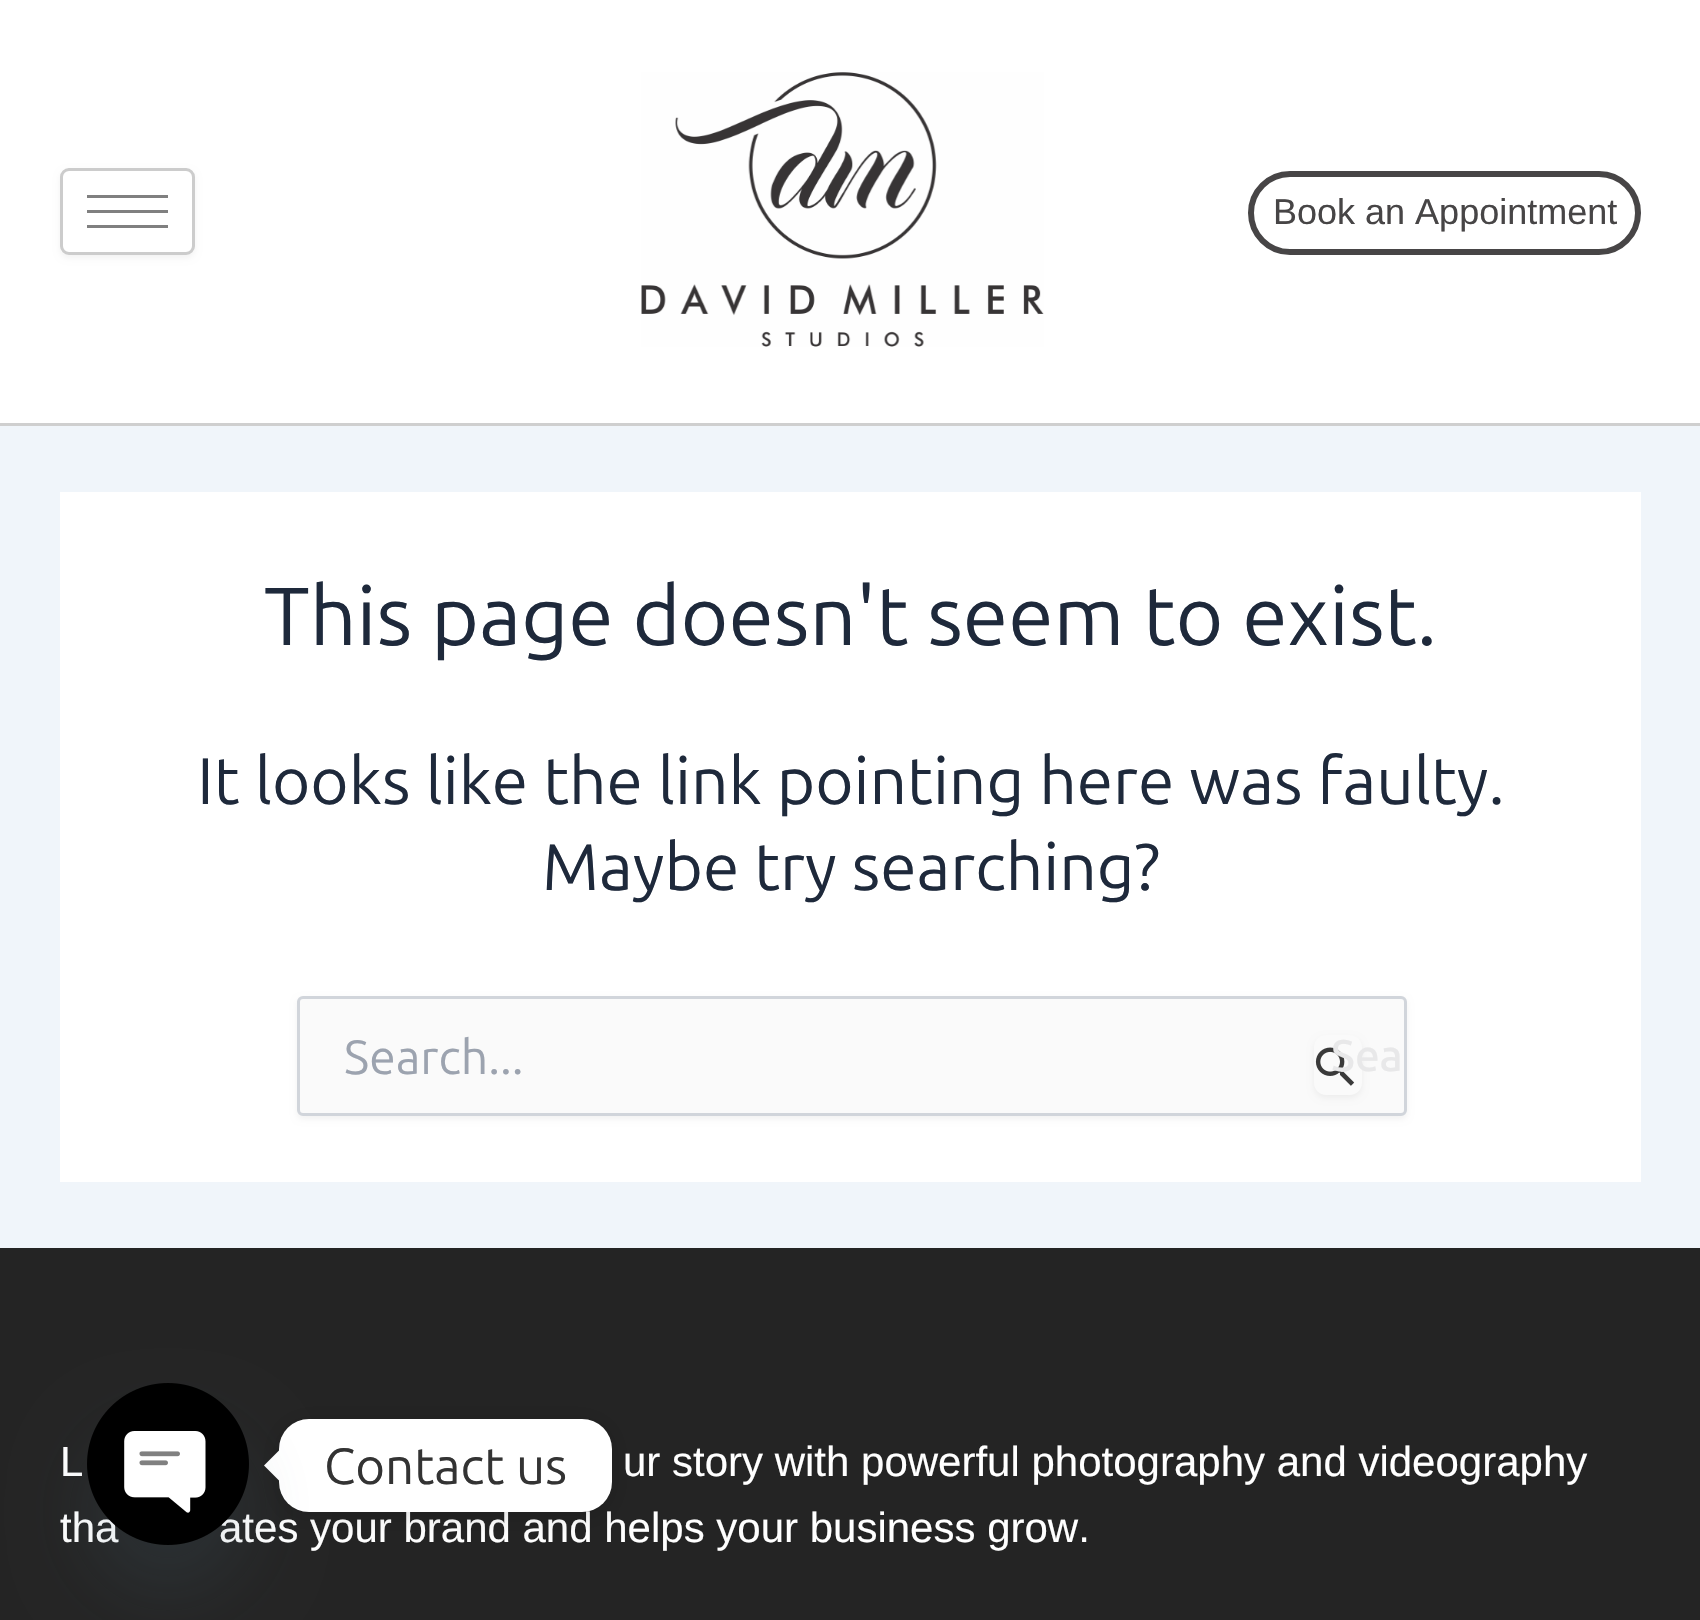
#include "include/core/SkBlurTypes.h"
#include "include/core/SkCanvas.h"
#include "include/core/SkData.h"
#include "include/core/SkFont.h"
#include "include/core/SkFontMgr.h"
#include "include/core/SkImage.h"
#include "include/core/SkMaskFilter.h"
#include "include/core/SkPaint.h"
#include "include/core/SkPathBuilder.h"
#include "include/core/SkTextBlob.h"
#include "include/effects/SkDashPathEffect.h"
#include "include/effects/SkGradientShader.h"
#include "include/utils/SkParsePath.h"

extern sk_sp<SkFontMgr> fontMgr;

static SkFont font(const char* family, int weight, float size, bool italic = false) {
    SkFontStyle style(weight, SkFontStyle::kNormal_Width,
        italic ? SkFontStyle::kItalic_Slant : SkFontStyle::kUpright_Slant);
    SkFont result(fontMgr->matchFamilyStyle(family, style), size);
    result.setSubpixel(true);
    return result;
}

static void drawLabel(SkCanvas* canvas, const char* s, float x, float y, const SkFont& font, SkColor color) {
    SkPaint ink(SkColor4f::FromColor(color));
    ink.setAntiAlias(true);
    canvas->drawString(s, x, y, font, ink);
}

static void fillRect(SkCanvas* canvas, float x, float y, float w, float h, SkColor color) {
    SkPaint ink(SkColor4f::FromColor(color));
    ink.setAntiAlias(true);
    canvas->drawRect(SkRect::MakeXYWH(x, y, w, h), ink);
}

static void fillRRect(SkCanvas* canvas, float x, float y, float w, float h, float radius, SkColor color) {
    SkPaint ink(SkColor4f::FromColor(color));
    ink.setAntiAlias(true);
    canvas->drawRoundRect(SkRect::MakeXYWH(x, y, w, h), radius, radius, ink);
}

static void drawPhoto(SkCanvas* canvas, const char* path, float x, float y, float w, float h) {
    auto image = SkImages::DeferredFromEncodedData(SkData::MakeFromFileName(path));
    canvas->drawImageRect(image, SkRect::MakeXYWH(x, y, w, h), SkSamplingOptions());
}

static SkPath parsePath(const char* data, bool evenOdd = false) {
    SkPath result = *SkParsePath::FromSVGString(data);
    if (evenOdd) result.setFillType(SkPathFillType::kEvenOdd);
    return result;
}

void draw(SkCanvas* canvas) {
    SkPaint paint;
    paint.setAntiAlias(true);
    canvas->clear(0xFFF0F5FA);
    fillRect(canvas, 0, 0, 1700, 423, 0xFFFFFFFF);
    fillRect(canvas, 0, 423, 1700, 3, 0xFFCFCFCF);
    canvas->save();
    canvas->clipPath(parsePath("M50 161H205V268H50ZM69 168H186C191 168 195 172 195 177V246C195 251 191 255 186 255H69C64 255 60 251 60 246V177C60 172 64 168 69 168Z", true), true);
    paint.setColor(0x0D000000);
    paint.setMaskFilter(SkMaskFilter::MakeBlur(kNormal_SkBlurStyle, 3));
    canvas->drawRoundRect(SkRect::MakeXYWH(60, 171, 135, 87), 9, 9, paint);
    paint.setMaskFilter(nullptr);
    canvas->restore();
    paint.setStroke(true);
    paint.setStrokeWidth(3);
    paint.setColor(0x33000000);
    canvas->drawRoundRect(SkRect::MakeXYWH(61.5f, 169.5f, 132, 84), 7.5f, 7.5f, paint);
    fillRect(canvas, 87, 195, 81, 3, 0xFF808080);
    fillRect(canvas, 87, 210, 81, 3, 0xFF808080);
    fillRect(canvas, 87, 225, 81, 3, 0xFF808080);
    drawPhoto(canvas, "assets/img1.png", 641, 72, 403, 275);
    paint.setStrokeWidth(6);
    paint.setColor(0xFF474546);
    canvas->drawRoundRect(SkRect::MakeXYWH(1251, 174, 387, 78), 39, 39, paint);
    SkFont font1 = font("Liberation Sans", 400, 36);
    drawLabel(canvas, "Book an Appointment", 1273, 224, font1, 0xFF474546);
    fillRect(canvas, 60, 492, 1581, 690, 0xFFFFFFFF);
    SkFont font2 = font("Ubuntu", 400, 82.1f);
    drawLabel(canvas, "This page doesn't seem to exist.", 264, 645, font2, 0xFF1E293B);
    SkFont font3 = font("Ubuntu", 400, 65.7f);
    drawLabel(canvas, "It looks like the link pointing here was faulty.", 197, 804, font3, 0xFF1E293B);
    drawLabel(canvas, "Maybe try searching?", 542, 890, font3, 0xFF1E293B);
    paint.setStroke(false);
    paint.setColor(0x0D000000);
    paint.setMaskFilter(SkMaskFilter::MakeBlur(kNormal_SkBlurStyle, 3));
    canvas->drawRoundRect(SkRect::MakeXYWH(297, 999, 1110, 120), 6, 6, paint);
    paint.setMaskFilter(nullptr);
    paint.setColor(0xFFFAFAFA);
    canvas->drawRoundRect(SkRect::MakeXYWH(298.5f, 997.5f, 1107, 117), 4.5f, 4.5f, paint);
    paint.setStroke(true);
    paint.setStrokeWidth(3);
    paint.setColor(0xFFD1D5DB);
    canvas->drawRoundRect(SkRect::MakeXYWH(298.5f, 997.5f, 1107, 117), 4.5f, 4.5f, paint);
    SkFont font4 = font("Ubuntu", 400, 48);
    drawLabel(canvas, "Search...", 344, 1074, font4, 0xFF9CA3AF);
    canvas->save();
    canvas->clipPath(parsePath("M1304 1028H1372V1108H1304ZM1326 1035H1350C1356.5 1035 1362 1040.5 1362 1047V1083C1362 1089.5 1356.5 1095 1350 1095H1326C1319.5 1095 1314 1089.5 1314 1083V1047C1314 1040.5 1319.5 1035 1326 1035Z", true), true);
    paint.setStroke(false);
    paint.setColor(0x0D000000);
    paint.setMaskFilter(SkMaskFilter::MakeBlur(kNormal_SkBlurStyle, 3));
    canvas->drawRoundRect(SkRect::MakeXYWH(1314, 1038, 48, 60), 12, 12, paint);
    paint.setMaskFilter(nullptr);
    canvas->restore();
    drawPhoto(canvas, "assets/img2.png", 1315, 1047, 40, 39);
    SkFont font5 = font("Ubuntu", 500, 44);
    drawLabel(canvas, "Sea", 1331, 1071, font5, 0xFFE8E8E9);
    fillRect(canvas, 0, 1248, 1700, 372, 0xFF242424);
    SkFont font6 = font("Liberation Sans", 400, 42);
    drawLabel(canvas, "L", 60, 1476, font6, 0xFFFFFFFF);
    drawLabel(canvas, "ur story with powerful photography and videography", 623, 1476, font6, 0xFFFFFFFF);
    drawLabel(canvas, "tha", 60, 1542, font6, 0xFFFFFFFF);
    drawLabel(canvas, "ates your brand and helps your business grow.", 219, 1542, font6, 0xFFFFFFFF);
    canvas->save();
    canvas->clipPath(parsePath("M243 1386H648V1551H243ZM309 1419H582C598.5 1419 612 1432.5 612 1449V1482C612 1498.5 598.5 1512 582 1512H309C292.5 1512 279 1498.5 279 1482V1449C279 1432.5 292.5 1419 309 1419Z", true), true);
    paint.setColor(0x26000000);
    paint.setMaskFilter(SkMaskFilter::MakeBlur(kNormal_SkBlurStyle, 11.5f));
    canvas->drawRoundRect(SkRect::MakeXYWH(279, 1422, 333, 93), 30, 30, paint);
    paint.setMaskFilter(nullptr);
    canvas->restore();
    fillRRect(canvas, 279, 1419, 333, 93, 30, 0xFFFFFFFF);
    paint.setColor(0xFFFFFFFF);
    canvas->drawPath(parsePath("M279 1450.5V1480.5L264 1465.5Z"), paint);
    paint.setColor(0x2949687E);
    paint.setMaskFilter(SkMaskFilter::MakeBlur(kNormal_SkBlurStyle, 36));
    canvas->drawRoundRect(SkRect::MakeXYWH(87, 1431, 162, 162), 81, 81, paint);
    paint.setMaskFilter(nullptr);
    drawPhoto(canvas, "assets/img3.png", 87, 1383, 162, 162);
    SkFont font7 = font("Ubuntu", 400, 51);
    drawLabel(canvas, "Contact us", 324, 1484, font7, 0xFF333333);
}
